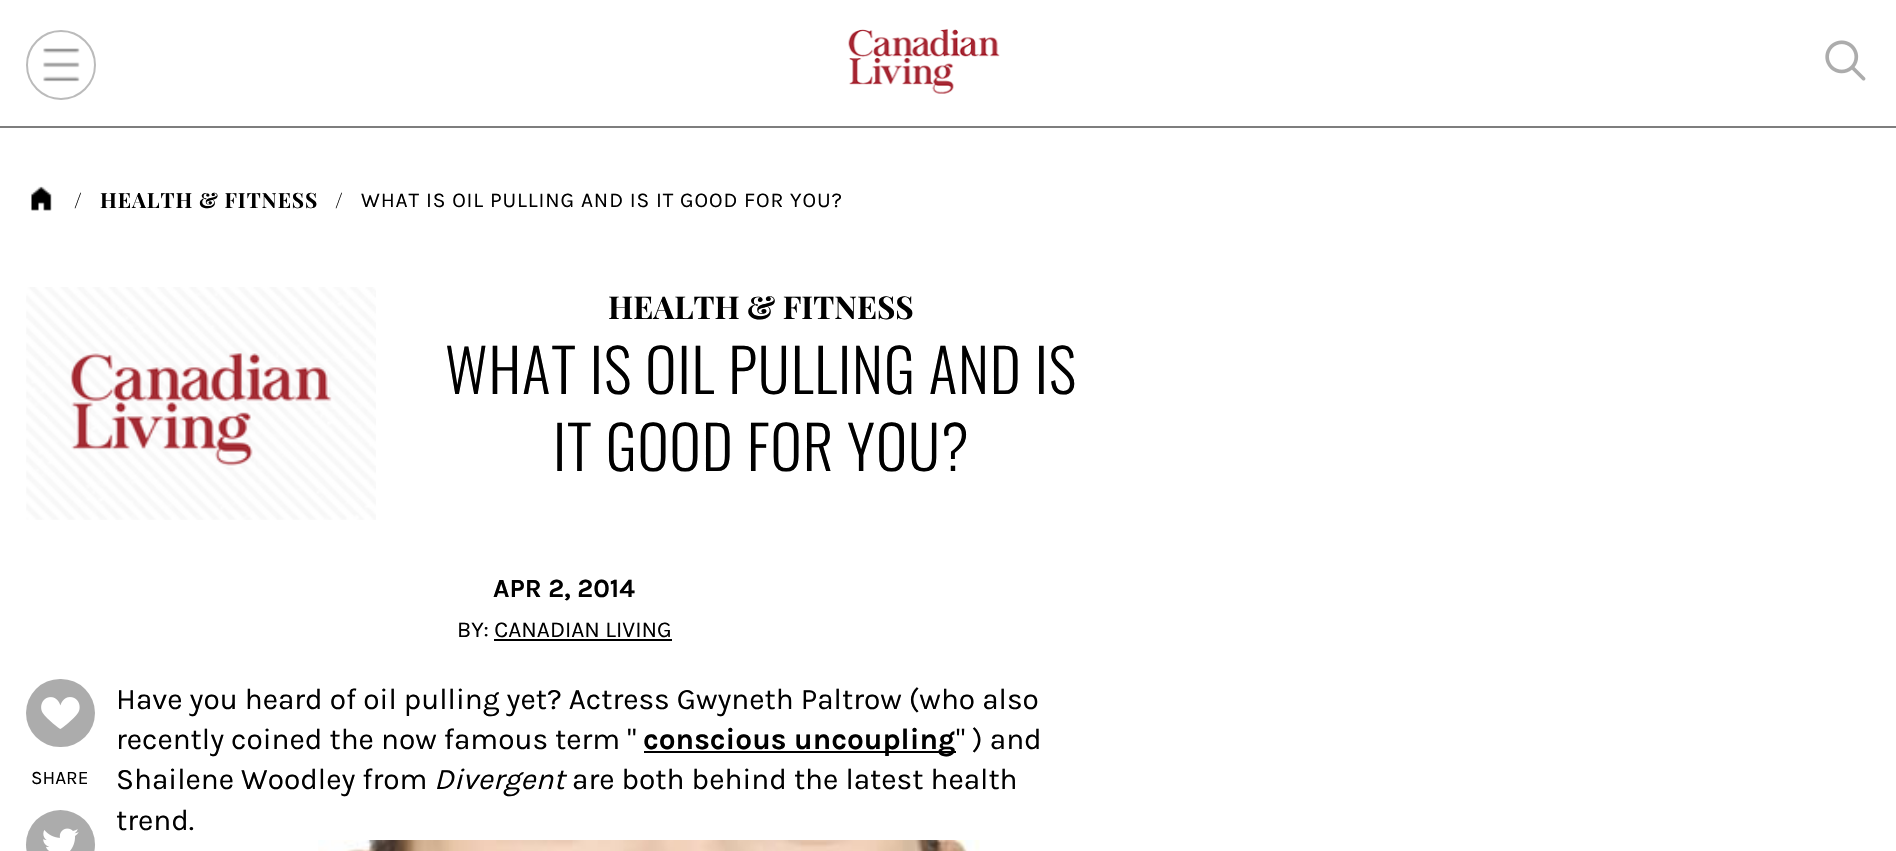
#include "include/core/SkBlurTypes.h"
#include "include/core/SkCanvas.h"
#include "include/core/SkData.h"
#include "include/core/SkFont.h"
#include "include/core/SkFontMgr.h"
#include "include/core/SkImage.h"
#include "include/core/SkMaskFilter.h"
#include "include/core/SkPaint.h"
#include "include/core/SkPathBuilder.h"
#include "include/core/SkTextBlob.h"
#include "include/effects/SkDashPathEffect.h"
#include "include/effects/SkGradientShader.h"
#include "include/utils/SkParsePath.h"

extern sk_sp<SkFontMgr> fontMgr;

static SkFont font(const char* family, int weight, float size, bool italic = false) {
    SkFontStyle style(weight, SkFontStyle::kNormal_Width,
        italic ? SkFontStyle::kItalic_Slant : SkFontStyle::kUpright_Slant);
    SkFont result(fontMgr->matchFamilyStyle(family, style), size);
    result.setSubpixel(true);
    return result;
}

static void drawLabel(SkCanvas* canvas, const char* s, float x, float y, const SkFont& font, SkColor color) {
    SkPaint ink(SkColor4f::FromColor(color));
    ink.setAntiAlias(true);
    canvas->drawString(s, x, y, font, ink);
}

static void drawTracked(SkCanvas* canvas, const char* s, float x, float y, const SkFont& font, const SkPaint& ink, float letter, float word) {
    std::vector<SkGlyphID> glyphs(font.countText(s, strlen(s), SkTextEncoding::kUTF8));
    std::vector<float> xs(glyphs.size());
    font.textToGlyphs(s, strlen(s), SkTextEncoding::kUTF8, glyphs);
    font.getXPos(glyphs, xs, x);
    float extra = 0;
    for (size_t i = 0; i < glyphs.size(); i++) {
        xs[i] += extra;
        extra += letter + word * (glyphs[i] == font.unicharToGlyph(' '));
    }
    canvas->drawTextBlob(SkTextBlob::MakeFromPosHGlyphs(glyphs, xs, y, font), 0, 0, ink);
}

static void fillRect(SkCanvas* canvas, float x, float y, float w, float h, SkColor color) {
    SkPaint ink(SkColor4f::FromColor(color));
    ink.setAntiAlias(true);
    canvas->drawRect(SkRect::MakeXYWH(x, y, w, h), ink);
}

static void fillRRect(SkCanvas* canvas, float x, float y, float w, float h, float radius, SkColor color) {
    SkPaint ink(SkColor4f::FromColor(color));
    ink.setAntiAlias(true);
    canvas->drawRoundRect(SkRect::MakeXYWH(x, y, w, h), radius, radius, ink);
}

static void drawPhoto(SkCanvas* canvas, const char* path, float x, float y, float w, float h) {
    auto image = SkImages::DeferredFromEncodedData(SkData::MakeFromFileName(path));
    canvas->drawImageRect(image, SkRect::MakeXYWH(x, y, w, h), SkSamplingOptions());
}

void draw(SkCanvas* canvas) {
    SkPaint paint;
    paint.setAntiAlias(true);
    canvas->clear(0xFFFFFFFF);
    fillRect(canvas, 0, 126, 1896, 2, 0xFF7E7E7E);
    drawPhoto(canvas, "assets/img1.png", 43, 48, 37, 34);
    paint.setStroke(true);
    paint.setStrokeWidth(2);
    paint.setColor(0xFFBBBBBB);
    canvas->drawCircle(61, 65, 34, paint);
    drawPhoto(canvas, "assets/img2.png", 848, 29, 152, 65);
    drawPhoto(canvas, "assets/img3.png", 1825, 40, 41, 41);
    drawPhoto(canvas, "assets/img4.png", 31, 186, 21, 25);
    SkFont font1 = font("Playfair Display", 700, 21);
    paint.setStroke(false);
    paint.setColor(0xFF000000);
    drawTracked(canvas, "/", 74, 208, font1, paint, 0.9f, 0);
    drawTracked(canvas, "HEALTH & FITNESS", 100, 208, font1, paint, 0.9f, 0);
    drawTracked(canvas, "/", 335, 208, font1, paint, 0.9f, 0);
    SkFont font2 = font("Karla", 400, 21);
    drawTracked(canvas, "WHAT IS OIL PULLING AND IS IT GOOD FOR YOU?", 361, 207, font2, paint, 0.9f, 0);
    drawPhoto(canvas, "assets/img5.png", 26, 287, 350, 233);
    SkFont font3 = font("Playfair Display", 700, 31.5f);
    drawLabel(canvas, "HEALTH & FITNESS", 608, 319, font3, 0xFF000000);
    SkFont font4 = font("Oswald", 300, 59.5f);
    drawTracked(canvas, "WHAT IS OIL PULLING AND IS", 445, 394, font4, paint, 0.9f, 0);
    drawTracked(canvas, "IT GOOD FOR YOU?", 553, 471, font4, paint, 0.9f, 0);
    SkFont font5 = font("Karla", 700, 26.25f);
    drawLabel(canvas, "APR 2, 2014", 493, 597, font5, 0xFF000000);
    SkFont font6 = font("Karla", 400, 22.75f);
    drawLabel(canvas, "BY: CANADIAN LIVING", 457, 637, font6, 0xFF000000);
    fillRect(canvas, 494, 639, 178, 2, 0xFF000000);
    fillRRect(canvas, 26, 679, 69, 68, 34, 0xFFACACAC);
    drawPhoto(canvas, "assets/img6.png", 41, 697, 39, 32);
    SkFont font7 = font("Karla", 400, 19);
    drawLabel(canvas, "SHARE", 31, 784, font7, 0xFF000000);
    paint.setColor(0xFFACACAC);
    canvas->drawCircle(60.5f, 844.5f, 34.5f, paint);
    drawPhoto(canvas, "assets/img7.png", 43, 828, 36, 23);
    SkFont font8 = font("Karla", 400, 29.75f);
    drawLabel(canvas, "Have you heard of oil pulling yet? Actress Gwyneth Paltrow (who also", 116, 709, font8, 0xFF000000);
    drawLabel(canvas, "recently coined the now famous term \"", 116, 749, font8, 0xFF000000);
    fillRect(canvas, 644, 751, 312, 2, 0xFF000000);
    SkFont font9 = font("Karla", 700, 29.75f);
    drawLabel(canvas, "conscious uncoupling", 643, 749, font9, 0xFF000000);
    drawLabel(canvas, "\" ) and", 956, 749, font8, 0xFF000000);
    drawLabel(canvas, "Shailene Woodley from", 116, 789, font8, 0xFF000000);
    SkFont font10 = font("Karla", 400, 29.75f, true);
    drawLabel(canvas, "Divergent", 434, 789, font10, 0xFF000000);
    drawLabel(canvas, "are both behind the latest health", 572, 789, font8, 0xFF000000);
    drawLabel(canvas, "trend.", 116, 830, font8, 0xFF000000);
    drawPhoto(canvas, "assets/img8.png", 318, 840, 662, 11);
}
